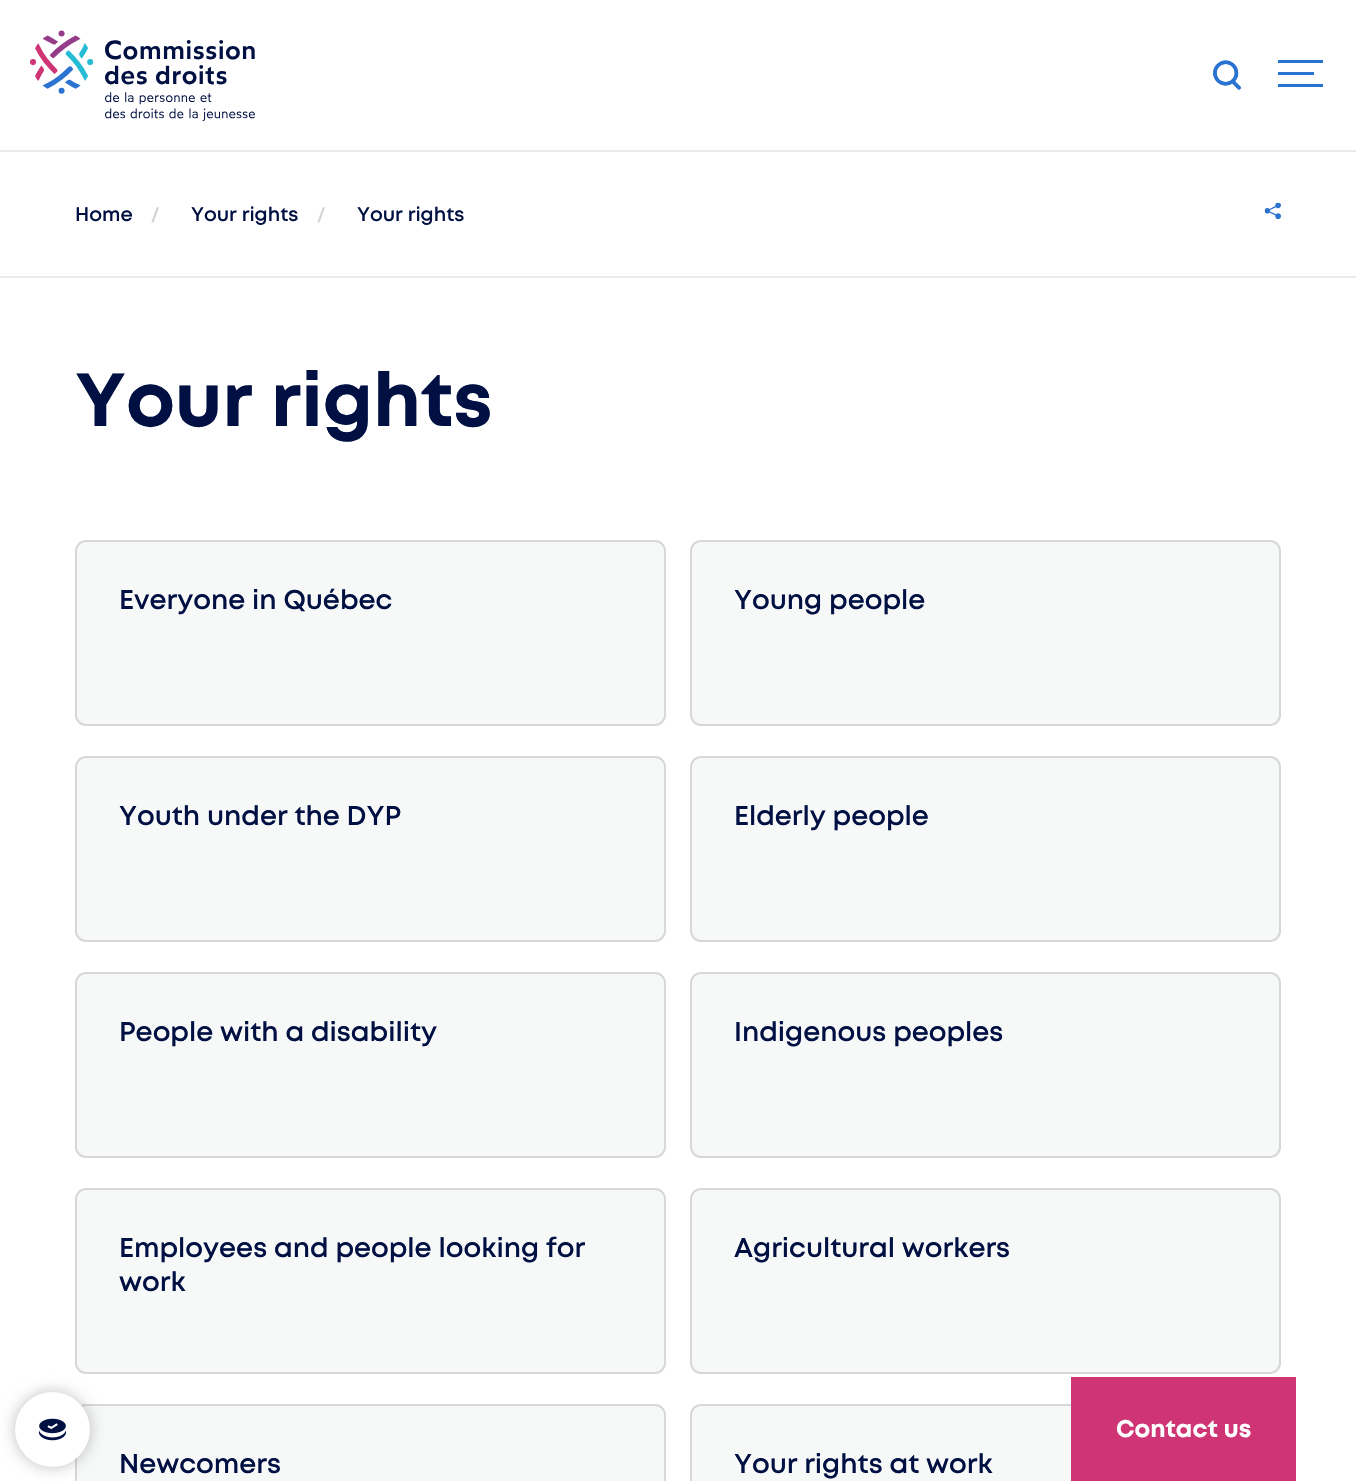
#include "include/core/SkBlurTypes.h"
#include "include/core/SkCanvas.h"
#include "include/core/SkData.h"
#include "include/core/SkFont.h"
#include "include/core/SkFontMgr.h"
#include "include/core/SkImage.h"
#include "include/core/SkMaskFilter.h"
#include "include/core/SkPaint.h"
#include "include/core/SkPathBuilder.h"
#include "include/core/SkTextBlob.h"
#include "include/effects/SkDashPathEffect.h"
#include "include/effects/SkGradientShader.h"
#include "include/utils/SkParsePath.h"

extern sk_sp<SkFontMgr> fontMgr;

static SkFont font(const char* family, int weight, float size, bool italic = false) {
    SkFontStyle style(weight, SkFontStyle::kNormal_Width,
        italic ? SkFontStyle::kItalic_Slant : SkFontStyle::kUpright_Slant);
    SkFont result(fontMgr->matchFamilyStyle(family, style), size);
    result.setSubpixel(true);
    return result;
}

static void drawLabel(SkCanvas* canvas, const char* s, float x, float y, const SkFont& font, SkColor color) {
    SkPaint ink(SkColor4f::FromColor(color));
    ink.setAntiAlias(true);
    canvas->drawString(s, x, y, font, ink);
}

static void fillRect(SkCanvas* canvas, float x, float y, float w, float h, SkColor color) {
    SkPaint ink(SkColor4f::FromColor(color));
    ink.setAntiAlias(true);
    canvas->drawRect(SkRect::MakeXYWH(x, y, w, h), ink);
}

static void drawPhoto(SkCanvas* canvas, const char* path, float x, float y, float w, float h) {
    auto image = SkImages::DeferredFromEncodedData(SkData::MakeFromFileName(path));
    canvas->drawImageRect(image, SkRect::MakeXYWH(x, y, w, h), SkSamplingOptions());
}

void draw(SkCanvas* canvas) {
    SkPaint paint;
    paint.setAntiAlias(true);
    canvas->clear(0xFFFFFFFF);
    paint.setColor(0xFFF7F8F8);
    canvas->drawRoundRect(SkRect::MakeXYWH(76, 1189, 589, 184), 10, 10, paint);
    paint.setStroke(true);
    paint.setStrokeWidth(2);
    paint.setColor(0xFFD6D8D9);
    canvas->drawRoundRect(SkRect::MakeXYWH(76, 1189, 589, 184), 10, 10, paint);
    paint.setStroke(false);
    paint.setColor(0xFFF7F8F8);
    canvas->drawRoundRect(SkRect::MakeXYWH(76, 1405, 589, 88), 10, 10, paint);
    paint.setStroke(true);
    paint.setColor(0xFFD6D8D9);
    canvas->drawRoundRect(SkRect::MakeXYWH(76, 1405, 589, 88), 10, 10, paint);
    paint.setStroke(false);
    paint.setColor(0x40000000);
    paint.setMaskFilter(SkMaskFilter::MakeBlur(kNormal_SkBlurStyle, 7.5f));
    canvas->drawRoundRect(SkRect::MakeXYWH(15, 1392, 75, 75), 37.5f, 37.5f, paint);
    paint.setMaskFilter(nullptr);
    paint.setColor(0xFFFFFFFF);
    canvas->drawCircle(52.5f, 1429.5f, 37.5f, paint);
    drawPhoto(canvas, "assets/img1.png", 38, 1418, 29, 23);
    fillRect(canvas, 0, 150, 1356, 2, 0xFFEAEBEC);
    drawPhoto(canvas, "assets/img2.png", 30, 30, 225, 91);
    drawPhoto(canvas, "assets/img3.png", 1213, 60, 28, 30);
    fillRect(canvas, 1278, 60, 45, 3, 0xFF2A73D0);
    fillRect(canvas, 1278, 72, 36, 3, 0xFF2A73D0);
    fillRect(canvas, 1278, 84, 45, 3, 0xFF2A73D0);
    fillRect(canvas, 0, 276, 1356, 2, 0xFFEAEBEC);
    SkFont font1 = font("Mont", 600, 19.5f);
    drawLabel(canvas, "Home", 75, 221, font1, 0xFF001042);
    SkFont font2 = font("Mont", 600, 18);
    drawLabel(canvas, "/", 151, 221, font2, 0xFFD2D5D8);
    drawLabel(canvas, "Your rights", 191, 221, font1, 0xFF001042);
    drawLabel(canvas, "/", 317, 221, font2, 0xFFD2D5D8);
    drawLabel(canvas, "Your rights", 357, 221, font1, 0xFF001042);
    drawPhoto(canvas, "assets/img4.png", 1264, 202, 17, 17);
    SkFont font3 = font("Mont", 700, 75);
    drawLabel(canvas, "Your rights", 75, 426, font3, 0xFF001042);
    paint.setColor(0xFFF7F8F8);
    canvas->drawRoundRect(SkRect::MakeXYWH(76, 541, 589, 184), 10, 10, paint);
    paint.setStroke(true);
    paint.setColor(0xFFD6D8D9);
    canvas->drawRoundRect(SkRect::MakeXYWH(76, 541, 589, 184), 10, 10, paint);
    SkFont font4 = font("Mont", 600, 27);
    drawLabel(canvas, "Everyone in Québec", 119, 609, font4, 0xFF001042);
    paint.setStroke(false);
    paint.setColor(0xFFF7F8F8);
    canvas->drawRoundRect(SkRect::MakeXYWH(691, 541, 589, 184), 10, 10, paint);
    paint.setStroke(true);
    paint.setColor(0xFFD6D8D9);
    canvas->drawRoundRect(SkRect::MakeXYWH(691, 541, 589, 184), 10, 10, paint);
    drawLabel(canvas, "Young people", 734, 609, font4, 0xFF001042);
    paint.setStroke(false);
    paint.setColor(0xFFF7F8F8);
    canvas->drawRoundRect(SkRect::MakeXYWH(76, 757, 589, 184), 10, 10, paint);
    paint.setStroke(true);
    paint.setColor(0xFFD6D8D9);
    canvas->drawRoundRect(SkRect::MakeXYWH(76, 757, 589, 184), 10, 10, paint);
    drawLabel(canvas, "Youth under the DYP", 119, 825, font4, 0xFF001042);
    paint.setStroke(false);
    paint.setColor(0xFFF7F8F8);
    canvas->drawRoundRect(SkRect::MakeXYWH(691, 757, 589, 184), 10, 10, paint);
    paint.setStroke(true);
    paint.setColor(0xFFD6D8D9);
    canvas->drawRoundRect(SkRect::MakeXYWH(691, 757, 589, 184), 10, 10, paint);
    drawLabel(canvas, "Elderly people", 734, 825, font4, 0xFF001042);
    paint.setStroke(false);
    paint.setColor(0xFFF7F8F8);
    canvas->drawRoundRect(SkRect::MakeXYWH(76, 973, 589, 184), 10, 10, paint);
    paint.setStroke(true);
    paint.setColor(0xFFD6D8D9);
    canvas->drawRoundRect(SkRect::MakeXYWH(76, 973, 589, 184), 10, 10, paint);
    drawLabel(canvas, "People with a disability", 119, 1041, font4, 0xFF001042);
    paint.setStroke(false);
    paint.setColor(0xFFF7F8F8);
    canvas->drawRoundRect(SkRect::MakeXYWH(691, 973, 589, 184), 10, 10, paint);
    paint.setStroke(true);
    paint.setColor(0xFFD6D8D9);
    canvas->drawRoundRect(SkRect::MakeXYWH(691, 973, 589, 184), 10, 10, paint);
    drawLabel(canvas, "Indigenous peoples", 734, 1041, font4, 0xFF001042);
    drawLabel(canvas, "Employees and people looking for", 119, 1257, font4, 0xFF001042);
    drawLabel(canvas, "work", 119, 1291, font4, 0xFF001042);
    paint.setStroke(false);
    paint.setColor(0xFFF7F8F8);
    canvas->drawRoundRect(SkRect::MakeXYWH(691, 1189, 589, 184), 10, 10, paint);
    paint.setStroke(true);
    paint.setColor(0xFFD6D8D9);
    canvas->drawRoundRect(SkRect::MakeXYWH(691, 1189, 589, 184), 10, 10, paint);
    drawLabel(canvas, "Agricultural workers", 734, 1257, font4, 0xFF001042);
    drawLabel(canvas, "Newcomers", 119, 1473, font4, 0xFF001042);
    paint.setStroke(false);
    paint.setColor(0xFFF7F8F8);
    canvas->drawRoundRect(SkRect::MakeXYWH(691, 1405, 589, 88), 10, 10, paint);
    paint.setStroke(true);
    paint.setColor(0xFFD6D8D9);
    canvas->drawRoundRect(SkRect::MakeXYWH(691, 1405, 589, 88), 10, 10, paint);
    drawLabel(canvas, "Your rights at work", 734, 1473, font4, 0xFF001042);
    fillRect(canvas, 1071, 1377, 225, 104, 0xFFCF3575);
    SkFont font5 = font("Mont", 700, 24);
    drawLabel(canvas, "Contact us", 1116, 1437, font5, 0xFFFFFFFF);
}
